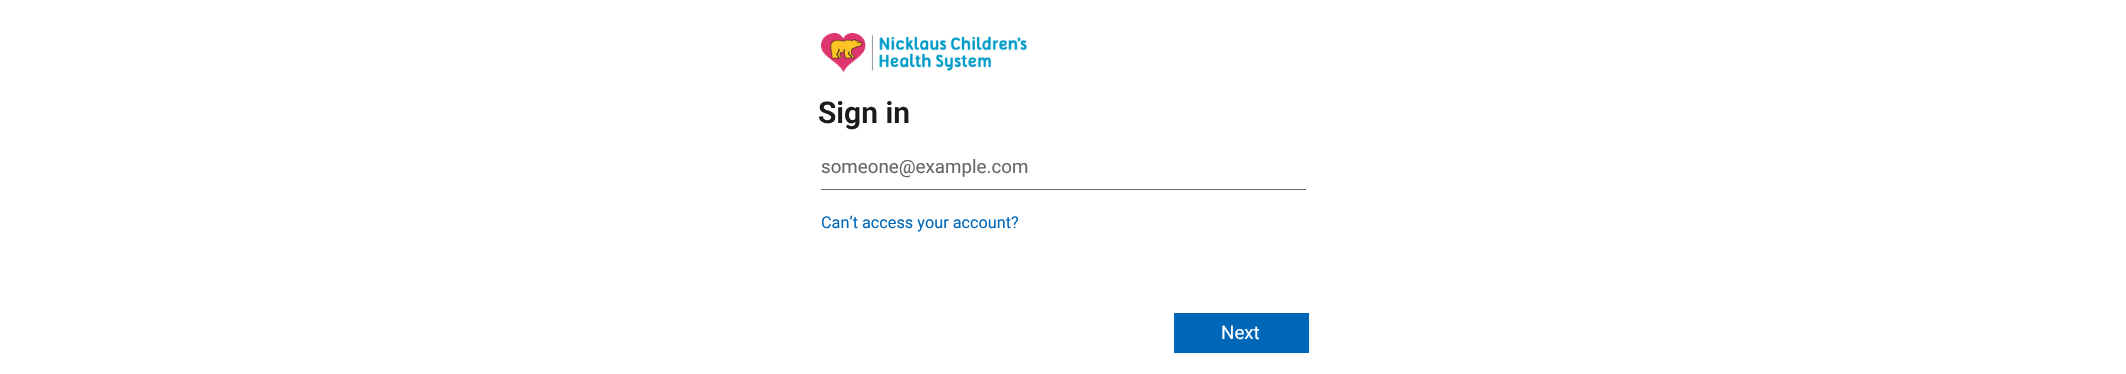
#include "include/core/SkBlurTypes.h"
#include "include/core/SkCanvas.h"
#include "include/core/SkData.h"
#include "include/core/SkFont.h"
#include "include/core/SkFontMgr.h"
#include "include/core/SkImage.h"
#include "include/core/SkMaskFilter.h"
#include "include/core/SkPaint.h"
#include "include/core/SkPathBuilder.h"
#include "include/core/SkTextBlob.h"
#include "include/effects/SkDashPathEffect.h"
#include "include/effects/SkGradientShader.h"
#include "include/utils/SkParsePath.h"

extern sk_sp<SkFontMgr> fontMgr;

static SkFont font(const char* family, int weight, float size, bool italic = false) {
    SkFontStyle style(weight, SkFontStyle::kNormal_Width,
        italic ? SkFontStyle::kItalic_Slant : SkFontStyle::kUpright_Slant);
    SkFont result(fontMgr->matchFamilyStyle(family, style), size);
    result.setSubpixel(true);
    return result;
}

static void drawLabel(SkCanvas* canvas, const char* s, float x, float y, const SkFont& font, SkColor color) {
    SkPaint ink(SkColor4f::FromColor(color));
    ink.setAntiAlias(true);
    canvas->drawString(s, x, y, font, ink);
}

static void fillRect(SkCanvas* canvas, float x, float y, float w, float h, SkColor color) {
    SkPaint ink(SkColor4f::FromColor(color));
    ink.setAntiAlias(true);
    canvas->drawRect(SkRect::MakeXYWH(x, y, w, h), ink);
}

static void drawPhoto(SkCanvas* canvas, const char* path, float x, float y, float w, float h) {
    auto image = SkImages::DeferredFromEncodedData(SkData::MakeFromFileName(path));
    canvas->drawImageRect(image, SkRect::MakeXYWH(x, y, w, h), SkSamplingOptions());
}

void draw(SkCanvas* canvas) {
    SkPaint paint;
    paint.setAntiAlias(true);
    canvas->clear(0xFFFFFFFF);
    drawPhoto(canvas, "assets/img1.png", 821, 33, 206, 40);
    SkFont font1 = font("Roboto", 600, 30);
    drawLabel(canvas, "Sign in", 818, 123, font1, 0xFF1B1B1B);
    fillRect(canvas, 821, 189, 485, 1, 0xFF666666);
    SkFont font2 = font("Roboto", 400, 18.75f);
    drawLabel(canvas, "someone@example.com", 821, 173, font2, 0xFF666666);
    SkFont font3 = font("Roboto", 400, 16.25f);
    drawLabel(canvas, "Can’t access your account?", 821, 228, font3, 0xFF0067B8);
    fillRect(canvas, 1174, 313, 135, 40, 0xFF0067B8);
    drawLabel(canvas, "Next", 1221, 339, font2, 0xFFFFFFFF);
}
